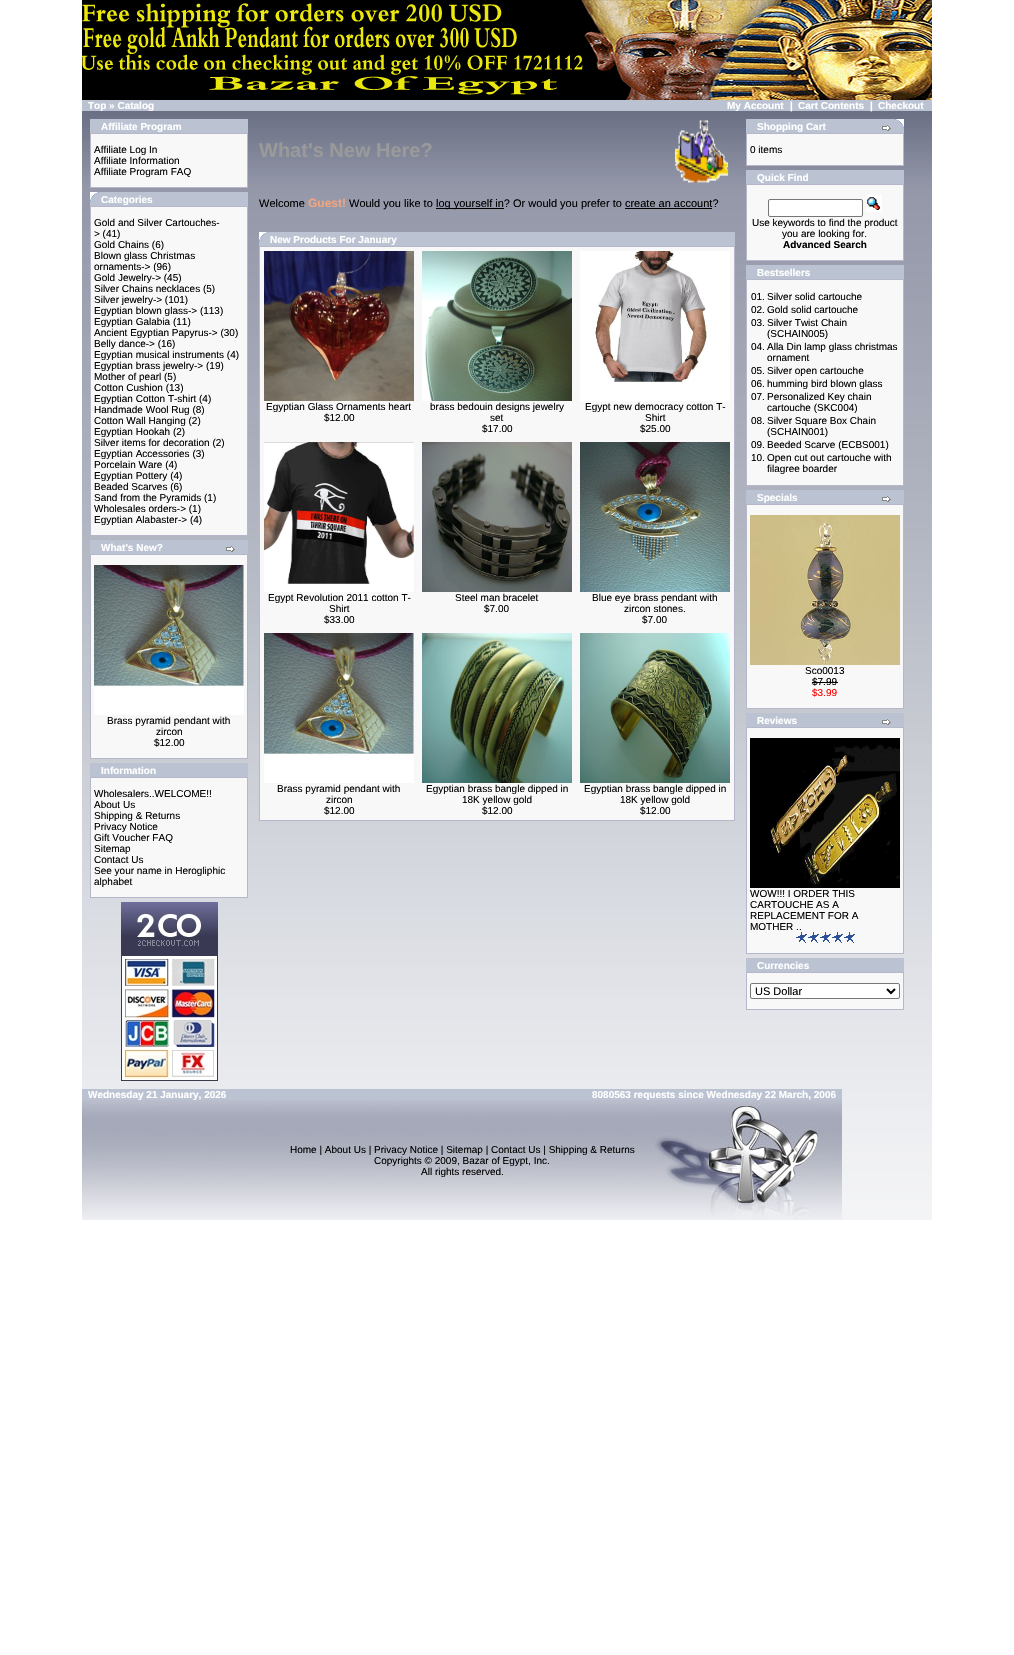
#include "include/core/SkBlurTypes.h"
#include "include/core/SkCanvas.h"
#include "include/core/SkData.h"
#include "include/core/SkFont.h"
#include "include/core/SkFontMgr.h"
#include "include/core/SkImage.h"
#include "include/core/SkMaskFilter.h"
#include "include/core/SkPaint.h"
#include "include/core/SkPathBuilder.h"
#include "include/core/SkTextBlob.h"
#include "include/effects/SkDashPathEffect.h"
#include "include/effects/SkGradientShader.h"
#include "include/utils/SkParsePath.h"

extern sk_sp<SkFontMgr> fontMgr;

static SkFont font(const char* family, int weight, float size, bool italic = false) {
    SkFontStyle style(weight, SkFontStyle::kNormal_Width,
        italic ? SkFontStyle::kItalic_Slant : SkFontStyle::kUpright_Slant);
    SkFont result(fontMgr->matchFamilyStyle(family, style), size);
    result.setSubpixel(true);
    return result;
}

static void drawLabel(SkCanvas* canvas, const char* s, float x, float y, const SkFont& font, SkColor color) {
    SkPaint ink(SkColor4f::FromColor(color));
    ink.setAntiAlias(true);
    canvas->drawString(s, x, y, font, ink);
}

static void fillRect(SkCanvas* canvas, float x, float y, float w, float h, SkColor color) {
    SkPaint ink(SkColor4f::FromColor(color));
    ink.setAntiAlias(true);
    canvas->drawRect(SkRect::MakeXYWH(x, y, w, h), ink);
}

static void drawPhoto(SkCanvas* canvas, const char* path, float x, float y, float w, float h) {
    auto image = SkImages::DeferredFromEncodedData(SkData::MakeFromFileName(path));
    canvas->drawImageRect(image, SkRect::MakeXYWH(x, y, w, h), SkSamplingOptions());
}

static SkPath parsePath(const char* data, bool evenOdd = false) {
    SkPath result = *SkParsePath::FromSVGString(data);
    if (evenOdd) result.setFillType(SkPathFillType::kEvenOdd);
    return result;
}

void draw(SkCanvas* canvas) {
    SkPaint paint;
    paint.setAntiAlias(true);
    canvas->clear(0xFFFFFFFF);
    drawPhoto(canvas, "assets/img1.png", 82, 111, 850, 1109);
    drawPhoto(canvas, "assets/img2.png", 82, 0, 850, 100);
    fillRect(canvas, 82, 100, 850, 11, 0xFFBBC3D3);
    SkFont font1 = font("Liberation Sans", 700, 10);
    drawLabel(canvas, "Top » Catalog", 88, 109, font1, 0xFFFFFFFF);
    drawLabel(canvas, "My Account", 727, 109, font1, 0xFFFFFFFF);
    drawLabel(canvas, "|", 790, 109, font1, 0xFFFFFFFF);
    drawLabel(canvas, "Cart Contents", 798, 109, font1, 0xFFFFFFFF);
    drawLabel(canvas, "|", 870, 109, font1, 0xFFFFFFFF);
    drawLabel(canvas, "Checkout", 878, 109, font1, 0xFFFFFFFF);
    fillRect(canvas, 90, 119, 158, 14, 0xFFBBC3D3);
    drawLabel(canvas, "Affiliate Program", 101, 130, font1, 0xFFFFFFFF);
    fillRect(canvas, 90, 133, 158, 55, 0xFFB6B7CB);
    fillRect(canvas, 91, 134, 156, 53, 0xFFF8F8F9);
    SkFont font2 = font("Liberation Sans", 400, 10);
    drawLabel(canvas, "Affiliate Log In", 94, 153, font2, 0xFF000000);
    drawLabel(canvas, "Affiliate Information", 94, 164, font2, 0xFF000000);
    drawLabel(canvas, "Affiliate Program FAQ", 94, 175, font2, 0xFF000000);
    fillRect(canvas, 90, 192, 158, 14, 0xFFBBC3D3);
    drawPhoto(canvas, "assets/img3.png", 90, 192, 10, 10);
    drawLabel(canvas, "Categories", 101, 203, font1, 0xFFFFFFFF);
    fillRect(canvas, 90, 206, 158, 330, 0xFFB6B7CB);
    fillRect(canvas, 91, 207, 156, 328, 0xFFF8F8F9);
    drawLabel(canvas, "Gold and Silver Cartouches-", 94, 226, font2, 0xFF000000);
    drawLabel(canvas, "> (41)", 94, 237, font2, 0xFF000000);
    drawLabel(canvas, "Gold Chains (6)", 94, 248, font2, 0xFF000000);
    drawLabel(canvas, "Blown glass Christmas", 94, 259, font2, 0xFF000000);
    drawLabel(canvas, "ornaments-> (96)", 94, 270, font2, 0xFF000000);
    drawLabel(canvas, "Gold Jewelry-> (45)", 94, 281, font2, 0xFF000000);
    drawLabel(canvas, "Silver Chains necklaces (5)", 94, 292, font2, 0xFF000000);
    drawLabel(canvas, "Silver jewelry-> (101)", 94, 303, font2, 0xFF000000);
    drawLabel(canvas, "Egyptian blown glass-> (113)", 94, 314, font2, 0xFF000000);
    drawLabel(canvas, "Egyptian Galabia (11)", 94, 325, font2, 0xFF000000);
    drawLabel(canvas, "Ancient Egyptian Papyrus-> (30)", 94, 336, font2, 0xFF000000);
    drawLabel(canvas, "Belly dance-> (16)", 94, 347, font2, 0xFF000000);
    drawLabel(canvas, "Egyptian musical instruments (4)", 94, 358, font2, 0xFF000000);
    drawLabel(canvas, "Egyptian brass jewelry-> (19)", 94, 369, font2, 0xFF000000);
    drawLabel(canvas, "Mother of pearl (5)", 94, 380, font2, 0xFF000000);
    drawLabel(canvas, "Cotton Cushion (13)", 94, 391, font2, 0xFF000000);
    drawLabel(canvas, "Egyptian Cotton T-shirt (4)", 94, 402, font2, 0xFF000000);
    drawLabel(canvas, "Handmade Wool Rug (8)", 94, 413, font2, 0xFF000000);
    drawLabel(canvas, "Cotton Wall Hanging (2)", 94, 424, font2, 0xFF000000);
    drawLabel(canvas, "Egyptian Hookah (2)", 94, 435, font2, 0xFF000000);
    drawLabel(canvas, "Silver items for decoration (2)", 94, 446, font2, 0xFF000000);
    drawLabel(canvas, "Egyptian Accessories (3)", 94, 457, font2, 0xFF000000);
    drawLabel(canvas, "Porcelain Ware (4)", 94, 468, font2, 0xFF000000);
    drawLabel(canvas, "Egyptian Pottery (4)", 94, 479, font2, 0xFF000000);
    drawLabel(canvas, "Beaded Scarves (6)", 94, 490, font2, 0xFF000000);
    drawLabel(canvas, "Sand from the Pyramids (1)", 94, 501, font2, 0xFF000000);
    drawLabel(canvas, "Wholesales orders-> (1)", 94, 512, font2, 0xFF000000);
    drawLabel(canvas, "Egyptian Alabaster-> (4)", 94, 523, font2, 0xFF000000);
    fillRect(canvas, 90, 540, 158, 14, 0xFFBBC3D3);
    drawLabel(canvas, "What's New?", 101, 551, font1, 0xFFFFFFFF);
    drawPhoto(canvas, "assets/img4.png", 226, 546, 9, 6);
    fillRect(canvas, 90, 554, 158, 205, 0xFFB6B7CB);
    fillRect(canvas, 91, 555, 156, 203, 0xFFF8F8F9);
    drawPhoto(canvas, "assets/img5.png", 94, 565, 150, 150);
    drawLabel(canvas, "Brass pyramid pendant with", 107, 724, font2, 0xFF000000);
    drawLabel(canvas, "zircon", 156, 735, font2, 0xFF000000);
    drawLabel(canvas, "$12.00", 154, 746, font2, 0xFF000000);
    fillRect(canvas, 90, 763, 158, 14, 0xFFBBC3D3);
    drawLabel(canvas, "Information", 101, 774, font1, 0xFFFFFFFF);
    fillRect(canvas, 90, 777, 158, 121, 0xFFB6B7CB);
    fillRect(canvas, 91, 778, 156, 119, 0xFFF8F8F9);
    drawLabel(canvas, "Wholesalers..WELCOME!!", 94, 797, font2, 0xFF000000);
    drawLabel(canvas, "About Us", 94, 808, font2, 0xFF000000);
    drawLabel(canvas, "Shipping & Returns", 94, 819, font2, 0xFF000000);
    drawLabel(canvas, "Privacy Notice", 94, 830, font2, 0xFF000000);
    drawLabel(canvas, "Gift Voucher FAQ", 94, 841, font2, 0xFF000000);
    drawLabel(canvas, "Sitemap", 94, 852, font2, 0xFF000000);
    drawLabel(canvas, "Contact Us", 94, 863, font2, 0xFF000000);
    drawLabel(canvas, "See your name in Herogliphic", 94, 874, font2, 0xFF000000);
    drawLabel(canvas, "alphabet", 94, 885, font2, 0xFF000000);
    drawPhoto(canvas, "assets/img6.png", 121, 902, 97, 179);
    SkFont font3 = font("Liberation Sans", 700, 20);
    drawLabel(canvas, "What's New Here?", 259, 157, font3, 0xFF9A9A9A);
    drawPhoto(canvas, "assets/img7.png", 675, 120, 54, 63);
    SkFont font4 = font("Liberation Sans", 400, 11);
    drawLabel(canvas, "Welcome", 259, 207, font4, 0xFF000000);
    SkFont font5 = font("Liberation Sans", 700, 12);
    drawLabel(canvas, "Guest!", 308, 207, font5, 0xFFF0A480);
    drawLabel(canvas, "Would you like to", 349, 207, font4, 0xFF000000);
    fillRect(canvas, 436, 208, 68, 1, 0xFF000000);
    drawLabel(canvas, "log yourself in? Or would you prefer to create an account?", 436, 207, font4, 0xFF000000);
    fillRect(canvas, 625, 208, 87, 1, 0xFF000000);
    fillRect(canvas, 259, 232, 476, 14, 0xFFBBC3D3);
    drawPhoto(canvas, "assets/img3.png", 259, 232, 10, 10);
    drawLabel(canvas, "New Products For January", 270, 243, font1, 0xFFFFFFFF);
    fillRect(canvas, 259, 246, 476, 575, 0xFFB6B7CB);
    fillRect(canvas, 260, 247, 474, 573, 0xFFF8F8F9);
    drawPhoto(canvas, "assets/img8.png", 264, 251, 150, 150);
    drawLabel(canvas, "Egyptian Glass Ornaments heart", 266, 410, font2, 0xFF000000);
    drawLabel(canvas, "$12.00", 324, 421, font2, 0xFF000000);
    drawPhoto(canvas, "assets/img9.png", 422, 251, 150, 150);
    drawLabel(canvas, "brass bedouin designs jewelry", 430, 410, font2, 0xFF000000);
    drawLabel(canvas, "set", 490, 421, font2, 0xFF000000);
    drawLabel(canvas, "$17.00", 482, 432, font2, 0xFF000000);
    drawPhoto(canvas, "assets/img10.png", 580, 251, 150, 150);
    drawLabel(canvas, "Egypt new democracy cotton T-", 585, 410, font2, 0xFF000000);
    drawLabel(canvas, "Shirt", 645, 421, font2, 0xFF000000);
    drawLabel(canvas, "$25.00", 640, 432, font2, 0xFF000000);
    drawPhoto(canvas, "assets/img11.png", 264, 442, 150, 150);
    drawLabel(canvas, "Egypt Revolution 2011 cotton T-", 268, 601, font2, 0xFF000000);
    drawLabel(canvas, "Shirt", 329, 612, font2, 0xFF000000);
    drawLabel(canvas, "$33.00", 324, 623, font2, 0xFF000000);
    drawPhoto(canvas, "assets/img12.png", 422, 442, 150, 150);
    drawLabel(canvas, "Steel man bracelet", 455, 601, font2, 0xFF000000);
    drawLabel(canvas, "$7.00", 484, 612, font2, 0xFF000000);
    drawPhoto(canvas, "assets/img13.png", 580, 442, 150, 150);
    drawLabel(canvas, "Blue eye brass pendant with", 592, 601, font2, 0xFF000000);
    drawLabel(canvas, "zircon stones.", 624, 612, font2, 0xFF000000);
    drawLabel(canvas, "$7.00", 642, 623, font2, 0xFF000000);
    drawPhoto(canvas, "assets/img5.png", 264, 633, 150, 150);
    drawLabel(canvas, "Brass pyramid pendant with", 277, 792, font2, 0xFF000000);
    drawLabel(canvas, "zircon", 326, 803, font2, 0xFF000000);
    drawLabel(canvas, "$12.00", 324, 814, font2, 0xFF000000);
    drawPhoto(canvas, "assets/img14.png", 422, 633, 150, 150);
    drawLabel(canvas, "Egyptian brass bangle dipped in", 426, 792, font2, 0xFF000000);
    drawLabel(canvas, "18K yellow gold", 462, 803, font2, 0xFF000000);
    drawLabel(canvas, "$12.00", 482, 814, font2, 0xFF000000);
    drawPhoto(canvas, "assets/img15.png", 580, 633, 150, 150);
    drawLabel(canvas, "Egyptian brass bangle dipped in", 584, 792, font2, 0xFF000000);
    drawLabel(canvas, "18K yellow gold", 620, 803, font2, 0xFF000000);
    drawLabel(canvas, "$12.00", 640, 814, font2, 0xFF000000);
    fillRect(canvas, 746, 119, 158, 14, 0xFFBBC3D3);
    drawLabel(canvas, "Shopping Cart", 757, 130, font1, 0xFFFFFFFF);
    drawPhoto(canvas, "assets/img4.png", 882, 125, 9, 6);
    drawPhoto(canvas, "assets/img16.png", 894, 119, 10, 10);
    fillRect(canvas, 746, 133, 158, 33, 0xFFB6B7CB);
    fillRect(canvas, 747, 134, 156, 31, 0xFFF8F8F9);
    drawLabel(canvas, "0 items", 750, 153, font2, 0xFF000000);
    fillRect(canvas, 746, 170, 158, 14, 0xFFBBC3D3);
    drawLabel(canvas, "Quick Find", 757, 181, font1, 0xFFFFFFFF);
    fillRect(canvas, 746, 184, 158, 77, 0xFFB6B7CB);
    fillRect(canvas, 747, 185, 156, 75, 0xFFF8F8F9);
    paint.setColor(0xFFFFFFFF);
    canvas->drawRoundRect(SkRect::MakeXYWH(768.5f, 199.5f, 94, 17), 1.5f, 1.5f, paint);
    paint.setStroke(true);
    paint.setStrokeWidth(1);
    paint.setColor(0xFF767676);
    canvas->drawRoundRect(SkRect::MakeXYWH(768.5f, 199.5f, 94, 17), 1.5f, 1.5f, paint);
    drawPhoto(canvas, "assets/img17.png", 866, 195, 16, 17);
    drawLabel(canvas, "Use keywords to find the product", 752, 226, font2, 0xFF000000);
    drawLabel(canvas, "you are looking for.", 782, 237, font2, 0xFF000000);
    drawLabel(canvas, "Advanced Search", 783, 248, font1, 0xFF000000);
    fillRect(canvas, 746, 265, 158, 14, 0xFFBBC3D3);
    drawLabel(canvas, "Bestsellers", 757, 276, font1, 0xFFFFFFFF);
    fillRect(canvas, 746, 279, 158, 207, 0xFFB6B7CB);
    fillRect(canvas, 747, 280, 156, 205, 0xFFF8F8F9);
    drawLabel(canvas, "01.", 751, 300, font2, 0xFF000000);
    drawLabel(canvas, "Silver solid cartouche", 767, 300, font2, 0xFF000000);
    drawLabel(canvas, "02.", 751, 313, font2, 0xFF000000);
    drawLabel(canvas, "Gold solid cartouche", 767, 313, font2, 0xFF000000);
    drawLabel(canvas, "03.", 751, 326, font2, 0xFF000000);
    drawLabel(canvas, "Silver Twist Chain", 767, 326, font2, 0xFF000000);
    drawLabel(canvas, "(SCHAIN005)", 767, 337, font2, 0xFF000000);
    drawLabel(canvas, "04.", 751, 350, font2, 0xFF000000);
    drawLabel(canvas, "Alla Din lamp glass christmas", 767, 350, font2, 0xFF000000);
    drawLabel(canvas, "ornament", 767, 361, font2, 0xFF000000);
    drawLabel(canvas, "05.", 751, 374, font2, 0xFF000000);
    drawLabel(canvas, "Silver open cartouche", 767, 374, font2, 0xFF000000);
    drawLabel(canvas, "06.", 751, 387, font2, 0xFF000000);
    drawLabel(canvas, "humming bird blown glass", 767, 387, font2, 0xFF000000);
    drawLabel(canvas, "07.", 751, 400, font2, 0xFF000000);
    drawLabel(canvas, "Personalized Key chain", 767, 400, font2, 0xFF000000);
    drawLabel(canvas, "cartouche (SKC004)", 767, 411, font2, 0xFF000000);
    drawLabel(canvas, "08.", 751, 424, font2, 0xFF000000);
    drawLabel(canvas, "Silver Square Box Chain", 767, 424, font2, 0xFF000000);
    drawLabel(canvas, "(SCHAIN001)", 767, 435, font2, 0xFF000000);
    drawLabel(canvas, "09.", 751, 448, font2, 0xFF000000);
    drawLabel(canvas, "Beeded Scarve (ECBS001)", 767, 448, font2, 0xFF000000);
    drawLabel(canvas, "10.", 751, 461, font2, 0xFF000000);
    drawLabel(canvas, "Open cut out cartouche with", 767, 461, font2, 0xFF000000);
    drawLabel(canvas, "filagree boarder", 767, 472, font2, 0xFF000000);
    fillRect(canvas, 746, 490, 158, 14, 0xFFBBC3D3);
    drawLabel(canvas, "Specials", 757, 501, font1, 0xFFFFFFFF);
    drawPhoto(canvas, "assets/img4.png", 882, 496, 9, 6);
    fillRect(canvas, 746, 504, 158, 205, 0xFFB6B7CB);
    fillRect(canvas, 747, 505, 156, 203, 0xFFF8F8F9);
    drawPhoto(canvas, "assets/img18.png", 750, 515, 150, 150);
    drawLabel(canvas, "Sco0013", 805, 674, font2, 0xFF000000);
    drawLabel(canvas, "$7.99", 812, 685, font2, 0xFF000000);
    fillRect(canvas, 812, 682, 26, 1, 0xFF000000);
    drawLabel(canvas, "$3.99", 812, 696, font2, 0xFFFF0000);
    fillRect(canvas, 746, 713, 158, 14, 0xFFBBC3D3);
    drawLabel(canvas, "Reviews", 757, 724, font1, 0xFFFFFFFF);
    drawPhoto(canvas, "assets/img4.png", 882, 719, 9, 6);
    fillRect(canvas, 746, 727, 158, 227, 0xFFB6B7CB);
    fillRect(canvas, 747, 728, 156, 225, 0xFFF8F8F9);
    drawPhoto(canvas, "assets/img19.png", 750, 738, 150, 150);
    drawLabel(canvas, "WOW!!! I ORDER THIS", 750, 897, font2, 0xFF000000);
    drawLabel(canvas, "CARTOUCHE AS A", 750, 908, font2, 0xFF000000);
    drawLabel(canvas, "REPLACEMENT FOR A", 750, 919, font2, 0xFF000000);
    drawLabel(canvas, "MOTHER ..", 750, 930, font2, 0xFF000000);
    drawPhoto(canvas, "assets/img20.png", 796, 932, 59, 11);
    fillRect(canvas, 746, 958, 158, 14, 0xFFBBC3D3);
    drawLabel(canvas, "Currencies", 757, 969, font1, 0xFFFFFFFF);
    fillRect(canvas, 746, 972, 158, 38, 0xFFB6B7CB);
    fillRect(canvas, 747, 973, 156, 36, 0xFFF8F8F9);
    paint.setStroke(false);
    paint.setColor(0xFFFFFFFF);
    canvas->drawRoundRect(SkRect::MakeXYWH(750.5f, 983.5f, 149, 15), 1.5f, 1.5f, paint);
    paint.setStroke(true);
    paint.setColor(0xFF767676);
    canvas->drawRoundRect(SkRect::MakeXYWH(750.5f, 983.5f, 149, 15), 1.5f, 1.5f, paint);
    paint.setStrokeWidth(2);
    paint.setColor(0xFF000000);
    canvas->drawPath(parsePath("M887 989L891 993L895 989"), paint);
    drawLabel(canvas, "US Dollar", 755, 995, font4, 0xFF000000);
    fillRect(canvas, 82, 1089, 760, 11, 0xFFBBC3D3);
    drawPhoto(canvas, "assets/img21.png", 82, 1100, 760, 120);
    drawLabel(canvas, "Wednesday 21 January, 2026", 88, 1098, font1, 0xFFFFFFFF);
    drawLabel(canvas, "8080563 requests since Wednesday 22 March, 2006", 592, 1098, font1, 0xFFFFFFFF);
    drawLabel(canvas, "Home | About Us | Privacy Notice | Sitemap | Contact Us | Shipping & Returns", 290, 1153, font2, 0xFF000000);
    drawLabel(canvas, "Copyrights © 2009, Bazar of Egypt, Inc.", 374, 1164, font2, 0xFF000000);
    drawLabel(canvas, "All rights reserved.", 421, 1175, font2, 0xFF000000);
}
